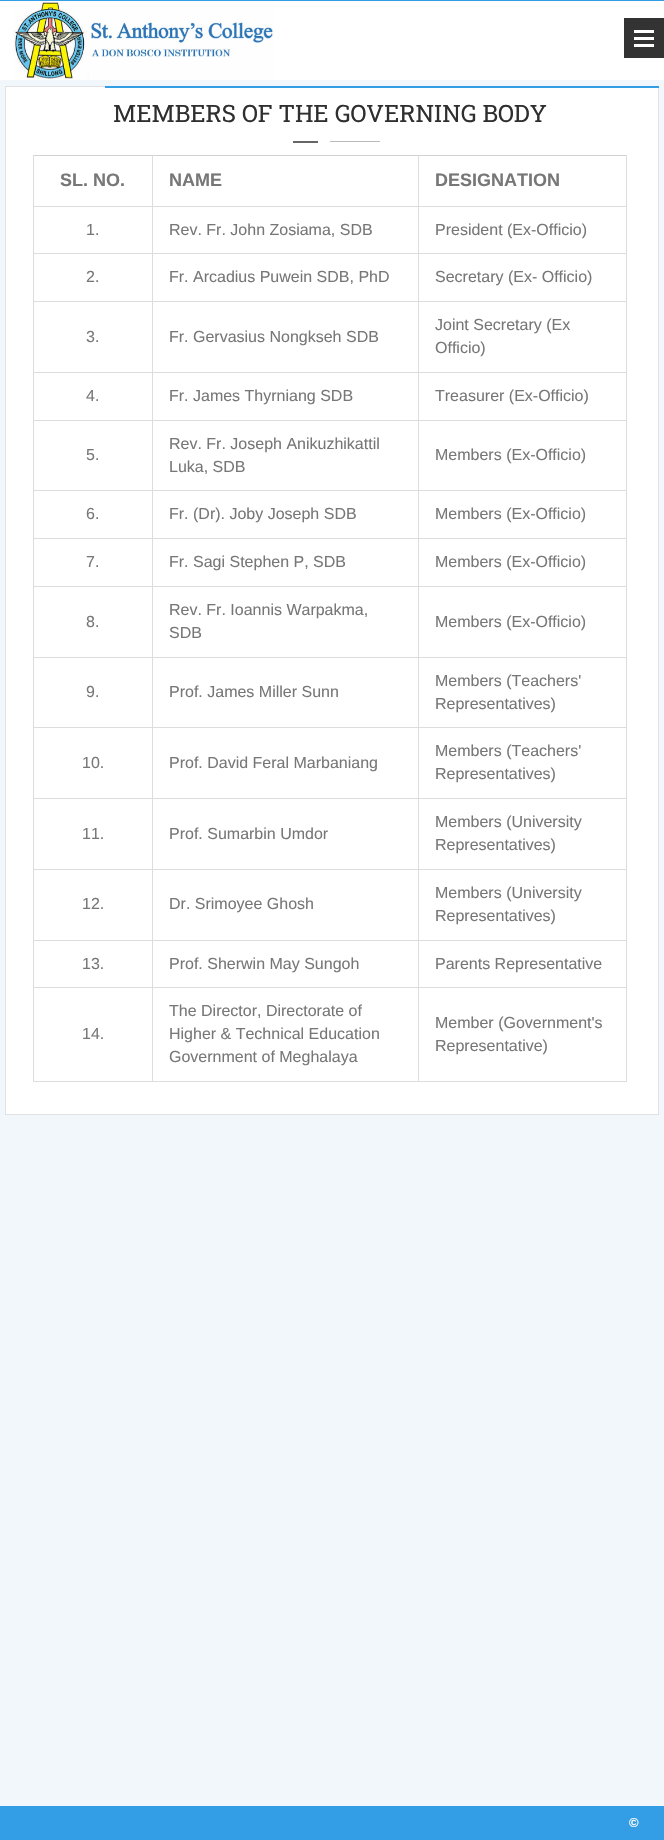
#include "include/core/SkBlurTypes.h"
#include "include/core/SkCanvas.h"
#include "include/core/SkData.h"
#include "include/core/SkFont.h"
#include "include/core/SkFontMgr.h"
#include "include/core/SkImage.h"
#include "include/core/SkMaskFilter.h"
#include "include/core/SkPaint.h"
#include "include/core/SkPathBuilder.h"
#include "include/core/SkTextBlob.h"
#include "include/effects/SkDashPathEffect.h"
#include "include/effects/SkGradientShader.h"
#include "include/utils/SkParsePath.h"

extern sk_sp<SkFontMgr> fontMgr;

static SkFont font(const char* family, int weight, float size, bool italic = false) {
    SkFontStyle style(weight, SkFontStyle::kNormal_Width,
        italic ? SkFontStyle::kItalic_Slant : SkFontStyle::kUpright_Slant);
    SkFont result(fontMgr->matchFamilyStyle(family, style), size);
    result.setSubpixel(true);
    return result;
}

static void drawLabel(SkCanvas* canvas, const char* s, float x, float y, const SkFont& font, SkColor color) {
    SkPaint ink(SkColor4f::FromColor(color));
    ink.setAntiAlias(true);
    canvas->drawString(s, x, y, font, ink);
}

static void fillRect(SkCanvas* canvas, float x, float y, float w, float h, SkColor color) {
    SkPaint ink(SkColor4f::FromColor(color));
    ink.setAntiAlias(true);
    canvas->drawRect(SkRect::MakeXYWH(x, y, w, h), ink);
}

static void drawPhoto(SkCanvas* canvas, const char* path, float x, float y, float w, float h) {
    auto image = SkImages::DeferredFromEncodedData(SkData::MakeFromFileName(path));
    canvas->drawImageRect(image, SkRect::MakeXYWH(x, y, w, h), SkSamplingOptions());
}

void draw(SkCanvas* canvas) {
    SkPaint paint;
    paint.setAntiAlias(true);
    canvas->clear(0xFFF1F7FB);
    fillRect(canvas, 0, 1, 664, 79, 0xFFFFFFFF);
    fillRect(canvas, 0, 0, 664, 1, 0xFF339EE6);
    drawPhoto(canvas, "assets/img1.png", 13, 1, 261, 79);
    fillRect(canvas, 624, 18, 40, 40, 0xFF333333);
    fillRect(canvas, 634, 44, 20, 3, 0xFFFFFFFF);
    fillRect(canvas, 634, 37, 20, 3, 0xFFFFFFFF);
    fillRect(canvas, 634, 30, 20, 3, 0xFFFFFFFF);
    paint.setColor(0xFFFFFFFF);
    canvas->drawRect(SkRect::MakeXYWH(5.5f, 86.5f, 653, 1028), paint);
    paint.setStroke(true);
    paint.setStrokeWidth(1);
    paint.setColor(0xFFE1E1E1);
    canvas->drawRect(SkRect::MakeXYWH(5.5f, 86.5f, 653, 1028), paint);
    fillRect(canvas, 105, 86, 554, 2, 0xFF339EE6);
    SkFont font1 = font("Roboto Slab", 400, 24);
    drawLabel(canvas, "MEMBERS OF THE GOVERNING BODY", 113, 122, font1, 0xFF2F2F2F);
    fillRect(canvas, 293, 141, 25, 2, 0xFF666666);
    fillRect(canvas, 330, 141, 50, 1, 0xFFBBBBBB);
    fillRect(canvas, 626, 207, 1, 875, 0xFFDDDDDD);
    fillRect(canvas, 33, 1081, 594, 1, 0xFFDDDDDD);
    fillRect(canvas, 33, 207, 1, 875, 0xFFDDDDDD);
    fillRect(canvas, 33, 155, 594, 1, 0xFFD2D2D2);
    fillRect(canvas, 418, 206, 209, 1, 0xFFDDDDDD);
    fillRect(canvas, 418, 253, 209, 1, 0xFFDDDDDD);
    fillRect(canvas, 418, 301, 209, 1, 0xFFDDDDDD);
    fillRect(canvas, 418, 372, 209, 1, 0xFFDDDDDD);
    fillRect(canvas, 418, 420, 209, 1, 0xFFDDDDDD);
    fillRect(canvas, 418, 490, 209, 1, 0xFFDDDDDD);
    fillRect(canvas, 418, 538, 209, 1, 0xFFDDDDDD);
    fillRect(canvas, 418, 586, 209, 1, 0xFFDDDDDD);
    fillRect(canvas, 418, 657, 209, 1, 0xFFDDDDDD);
    fillRect(canvas, 418, 727, 209, 1, 0xFFDDDDDD);
    fillRect(canvas, 418, 798, 209, 1, 0xFFDDDDDD);
    fillRect(canvas, 418, 869, 209, 1, 0xFFDDDDDD);
    fillRect(canvas, 418, 940, 209, 1, 0xFFDDDDDD);
    fillRect(canvas, 418, 987, 209, 1, 0xFFDDDDDD);
    fillRect(canvas, 418, 987, 1, 95, 0xFFDDDDDD);
    fillRect(canvas, 152, 987, 267, 1, 0xFFDDDDDD);
    fillRect(canvas, 418, 940, 1, 48, 0xFFDDDDDD);
    fillRect(canvas, 152, 940, 267, 1, 0xFFDDDDDD);
    fillRect(canvas, 418, 869, 1, 72, 0xFFDDDDDD);
    fillRect(canvas, 152, 869, 267, 1, 0xFFDDDDDD);
    fillRect(canvas, 418, 798, 1, 72, 0xFFDDDDDD);
    fillRect(canvas, 152, 798, 267, 1, 0xFFDDDDDD);
    fillRect(canvas, 418, 727, 1, 72, 0xFFDDDDDD);
    fillRect(canvas, 152, 727, 267, 1, 0xFFDDDDDD);
    fillRect(canvas, 418, 657, 1, 71, 0xFFDDDDDD);
    fillRect(canvas, 152, 657, 267, 1, 0xFFDDDDDD);
    fillRect(canvas, 418, 586, 1, 72, 0xFFDDDDDD);
    fillRect(canvas, 152, 586, 267, 1, 0xFFDDDDDD);
    fillRect(canvas, 418, 538, 1, 49, 0xFFDDDDDD);
    fillRect(canvas, 152, 538, 267, 1, 0xFFDDDDDD);
    fillRect(canvas, 418, 490, 1, 49, 0xFFDDDDDD);
    fillRect(canvas, 152, 490, 267, 1, 0xFFDDDDDD);
    fillRect(canvas, 418, 420, 1, 71, 0xFFDDDDDD);
    fillRect(canvas, 152, 420, 267, 1, 0xFFDDDDDD);
    fillRect(canvas, 418, 372, 1, 49, 0xFFDDDDDD);
    fillRect(canvas, 152, 372, 267, 1, 0xFFDDDDDD);
    fillRect(canvas, 418, 301, 1, 72, 0xFFDDDDDD);
    fillRect(canvas, 152, 301, 267, 1, 0xFFDDDDDD);
    fillRect(canvas, 418, 253, 1, 49, 0xFFDDDDDD);
    fillRect(canvas, 152, 253, 267, 1, 0xFFDDDDDD);
    fillRect(canvas, 418, 206, 1, 48, 0xFFDDDDDD);
    fillRect(canvas, 152, 206, 267, 1, 0xFFDDDDDD);
    fillRect(canvas, 152, 987, 1, 95, 0xFFDDDDDD);
    fillRect(canvas, 33, 987, 120, 1, 0xFFDDDDDD);
    fillRect(canvas, 152, 940, 1, 48, 0xFFDDDDDD);
    fillRect(canvas, 33, 940, 120, 1, 0xFFDDDDDD);
    fillRect(canvas, 152, 869, 1, 72, 0xFFDDDDDD);
    fillRect(canvas, 33, 869, 120, 1, 0xFFDDDDDD);
    fillRect(canvas, 152, 798, 1, 72, 0xFFDDDDDD);
    fillRect(canvas, 33, 798, 120, 1, 0xFFDDDDDD);
    fillRect(canvas, 152, 727, 1, 72, 0xFFDDDDDD);
    fillRect(canvas, 33, 727, 120, 1, 0xFFDDDDDD);
    fillRect(canvas, 152, 657, 1, 71, 0xFFDDDDDD);
    fillRect(canvas, 33, 657, 120, 1, 0xFFDDDDDD);
    fillRect(canvas, 152, 586, 1, 72, 0xFFDDDDDD);
    fillRect(canvas, 33, 586, 120, 1, 0xFFDDDDDD);
    fillRect(canvas, 152, 538, 1, 49, 0xFFDDDDDD);
    fillRect(canvas, 33, 538, 120, 1, 0xFFDDDDDD);
    fillRect(canvas, 152, 490, 1, 49, 0xFFDDDDDD);
    fillRect(canvas, 33, 490, 120, 1, 0xFFDDDDDD);
    fillRect(canvas, 152, 420, 1, 71, 0xFFDDDDDD);
    fillRect(canvas, 33, 420, 120, 1, 0xFFDDDDDD);
    fillRect(canvas, 152, 372, 1, 49, 0xFFDDDDDD);
    fillRect(canvas, 33, 372, 120, 1, 0xFFDDDDDD);
    fillRect(canvas, 152, 301, 1, 72, 0xFFDDDDDD);
    fillRect(canvas, 33, 301, 120, 1, 0xFFDDDDDD);
    fillRect(canvas, 152, 253, 1, 49, 0xFFDDDDDD);
    fillRect(canvas, 33, 253, 120, 1, 0xFFDDDDDD);
    fillRect(canvas, 152, 206, 1, 48, 0xFFDDDDDD);
    fillRect(canvas, 33, 206, 120, 1, 0xFFDDDDDD);
    fillRect(canvas, 152, 155, 1, 52, 0xFFDDDDDD);
    fillRect(canvas, 33, 155, 1, 52, 0xFFDDDDDD);
    SkFont font2 = font("Liberation Sans", 700, 18);
    drawLabel(canvas, "SL. NO.", 60, 186, font2, 0xFF777777);
    fillRect(canvas, 418, 155, 1, 52, 0xFFDDDDDD);
    drawLabel(canvas, "NAME", 169, 186, font2, 0xFF777777);
    fillRect(canvas, 626, 155, 1, 52, 0xFFDDDDDD);
    drawLabel(canvas, "DESIGNATION", 435, 186, font2, 0xFF777777);
    SkFont font3 = font("Liberation Sans", 400, 16);
    drawLabel(canvas, "1.", 86, 235, font3, 0xFF777777);
    drawLabel(canvas, "Rev. Fr. John Zosiama, SDB", 169, 235, font3, 0xFF777777);
    drawLabel(canvas, "President (Ex-Officio)", 435, 235, font3, 0xFF777777);
    drawLabel(canvas, "2.", 86, 282, font3, 0xFF777777);
    drawLabel(canvas, "Fr. Arcadius Puwein SDB, PhD", 169, 282, font3, 0xFF777777);
    drawLabel(canvas, "Secretary (Ex- Officio)", 435, 282, font3, 0xFF777777);
    drawLabel(canvas, "3.", 86, 342, font3, 0xFF777777);
    drawLabel(canvas, "Fr. Gervasius Nongkseh SDB", 169, 342, font3, 0xFF777777);
    drawLabel(canvas, "Joint Secretary (Ex", 435, 330, font3, 0xFF777777);
    drawLabel(canvas, "Officio)", 435, 353, font3, 0xFF777777);
    drawLabel(canvas, "4.", 86, 401, font3, 0xFF777777);
    drawLabel(canvas, "Fr. James Thyrniang SDB", 169, 401, font3, 0xFF777777);
    drawLabel(canvas, "Treasurer (Ex-Officio)", 435, 401, font3, 0xFF777777);
    drawLabel(canvas, "5.", 86, 460, font3, 0xFF777777);
    drawLabel(canvas, "Rev. Fr. Joseph Anikuzhikattil", 169, 449, font3, 0xFF777777);
    drawLabel(canvas, "Luka, SDB", 169, 472, font3, 0xFF777777);
    drawLabel(canvas, "Members (Ex-Officio)", 435, 460, font3, 0xFF777777);
    drawLabel(canvas, "6.", 86, 519, font3, 0xFF777777);
    drawLabel(canvas, "Fr. (Dr). Joby Joseph SDB", 169, 519, font3, 0xFF777777);
    drawLabel(canvas, "Members (Ex-Officio)", 435, 519, font3, 0xFF777777);
    drawLabel(canvas, "7.", 86, 567, font3, 0xFF777777);
    drawLabel(canvas, "Fr. Sagi Stephen P, SDB", 169, 567, font3, 0xFF777777);
    drawLabel(canvas, "Members (Ex-Officio)", 435, 567, font3, 0xFF777777);
    drawLabel(canvas, "8.", 86, 627, font3, 0xFF777777);
    drawLabel(canvas, "Rev. Fr. Ioannis Warpakma,", 169, 615, font3, 0xFF777777);
    drawLabel(canvas, "SDB", 169, 638, font3, 0xFF777777);
    drawLabel(canvas, "Members (Ex-Officio)", 435, 627, font3, 0xFF777777);
    drawLabel(canvas, "9.", 86, 697, font3, 0xFF777777);
    drawLabel(canvas, "Prof. James Miller Sunn", 169, 697, font3, 0xFF777777);
    drawLabel(canvas, "Members (Teachers'", 435, 686, font3, 0xFF777777);
    drawLabel(canvas, "Representatives)", 435, 709, font3, 0xFF777777);
    drawLabel(canvas, "10.", 82, 768, font3, 0xFF777777);
    drawLabel(canvas, "Prof. David Feral Marbaniang", 169, 768, font3, 0xFF777777);
    drawLabel(canvas, "Members (Teachers'", 435, 756, font3, 0xFF777777);
    drawLabel(canvas, "Representatives)", 435, 779, font3, 0xFF777777);
    drawLabel(canvas, "11.", 82, 839, font3, 0xFF777777);
    drawLabel(canvas, "Prof. Sumarbin Umdor", 169, 839, font3, 0xFF777777);
    drawLabel(canvas, "Members (University", 435, 827, font3, 0xFF777777);
    drawLabel(canvas, "Representatives)", 435, 850, font3, 0xFF777777);
    drawLabel(canvas, "12.", 82, 909, font3, 0xFF777777);
    drawLabel(canvas, "Dr. Srimoyee Ghosh", 169, 909, font3, 0xFF777777);
    drawLabel(canvas, "Members (University", 435, 898, font3, 0xFF777777);
    drawLabel(canvas, "Representatives)", 435, 921, font3, 0xFF777777);
    drawLabel(canvas, "13.", 82, 969, font3, 0xFF777777);
    drawLabel(canvas, "Prof. Sherwin May Sungoh", 169, 969, font3, 0xFF777777);
    drawLabel(canvas, "Parents Representative", 435, 969, font3, 0xFF777777);
    drawLabel(canvas, "14.", 82, 1039, font3, 0xFF777777);
    drawLabel(canvas, "The Director, Directorate of", 169, 1016, font3, 0xFF777777);
    drawLabel(canvas, "Higher & Technical Education", 169, 1039, font3, 0xFF777777);
    drawLabel(canvas, "Government of Meghalaya", 169, 1062, font3, 0xFF777777);
    drawLabel(canvas, "Member (Government's", 435, 1028, font3, 0xFF777777);
    drawLabel(canvas, "Representative)", 435, 1051, font3, 0xFF777777);
    fillRect(canvas, 0, 1806, 664, 34, 0xFF339EE6);
    SkFont font4 = font("Liberation Sans", 700, 13);
    drawLabel(canvas, "©", 629, 1827, font4, 0xFFF9F9F9);
}
